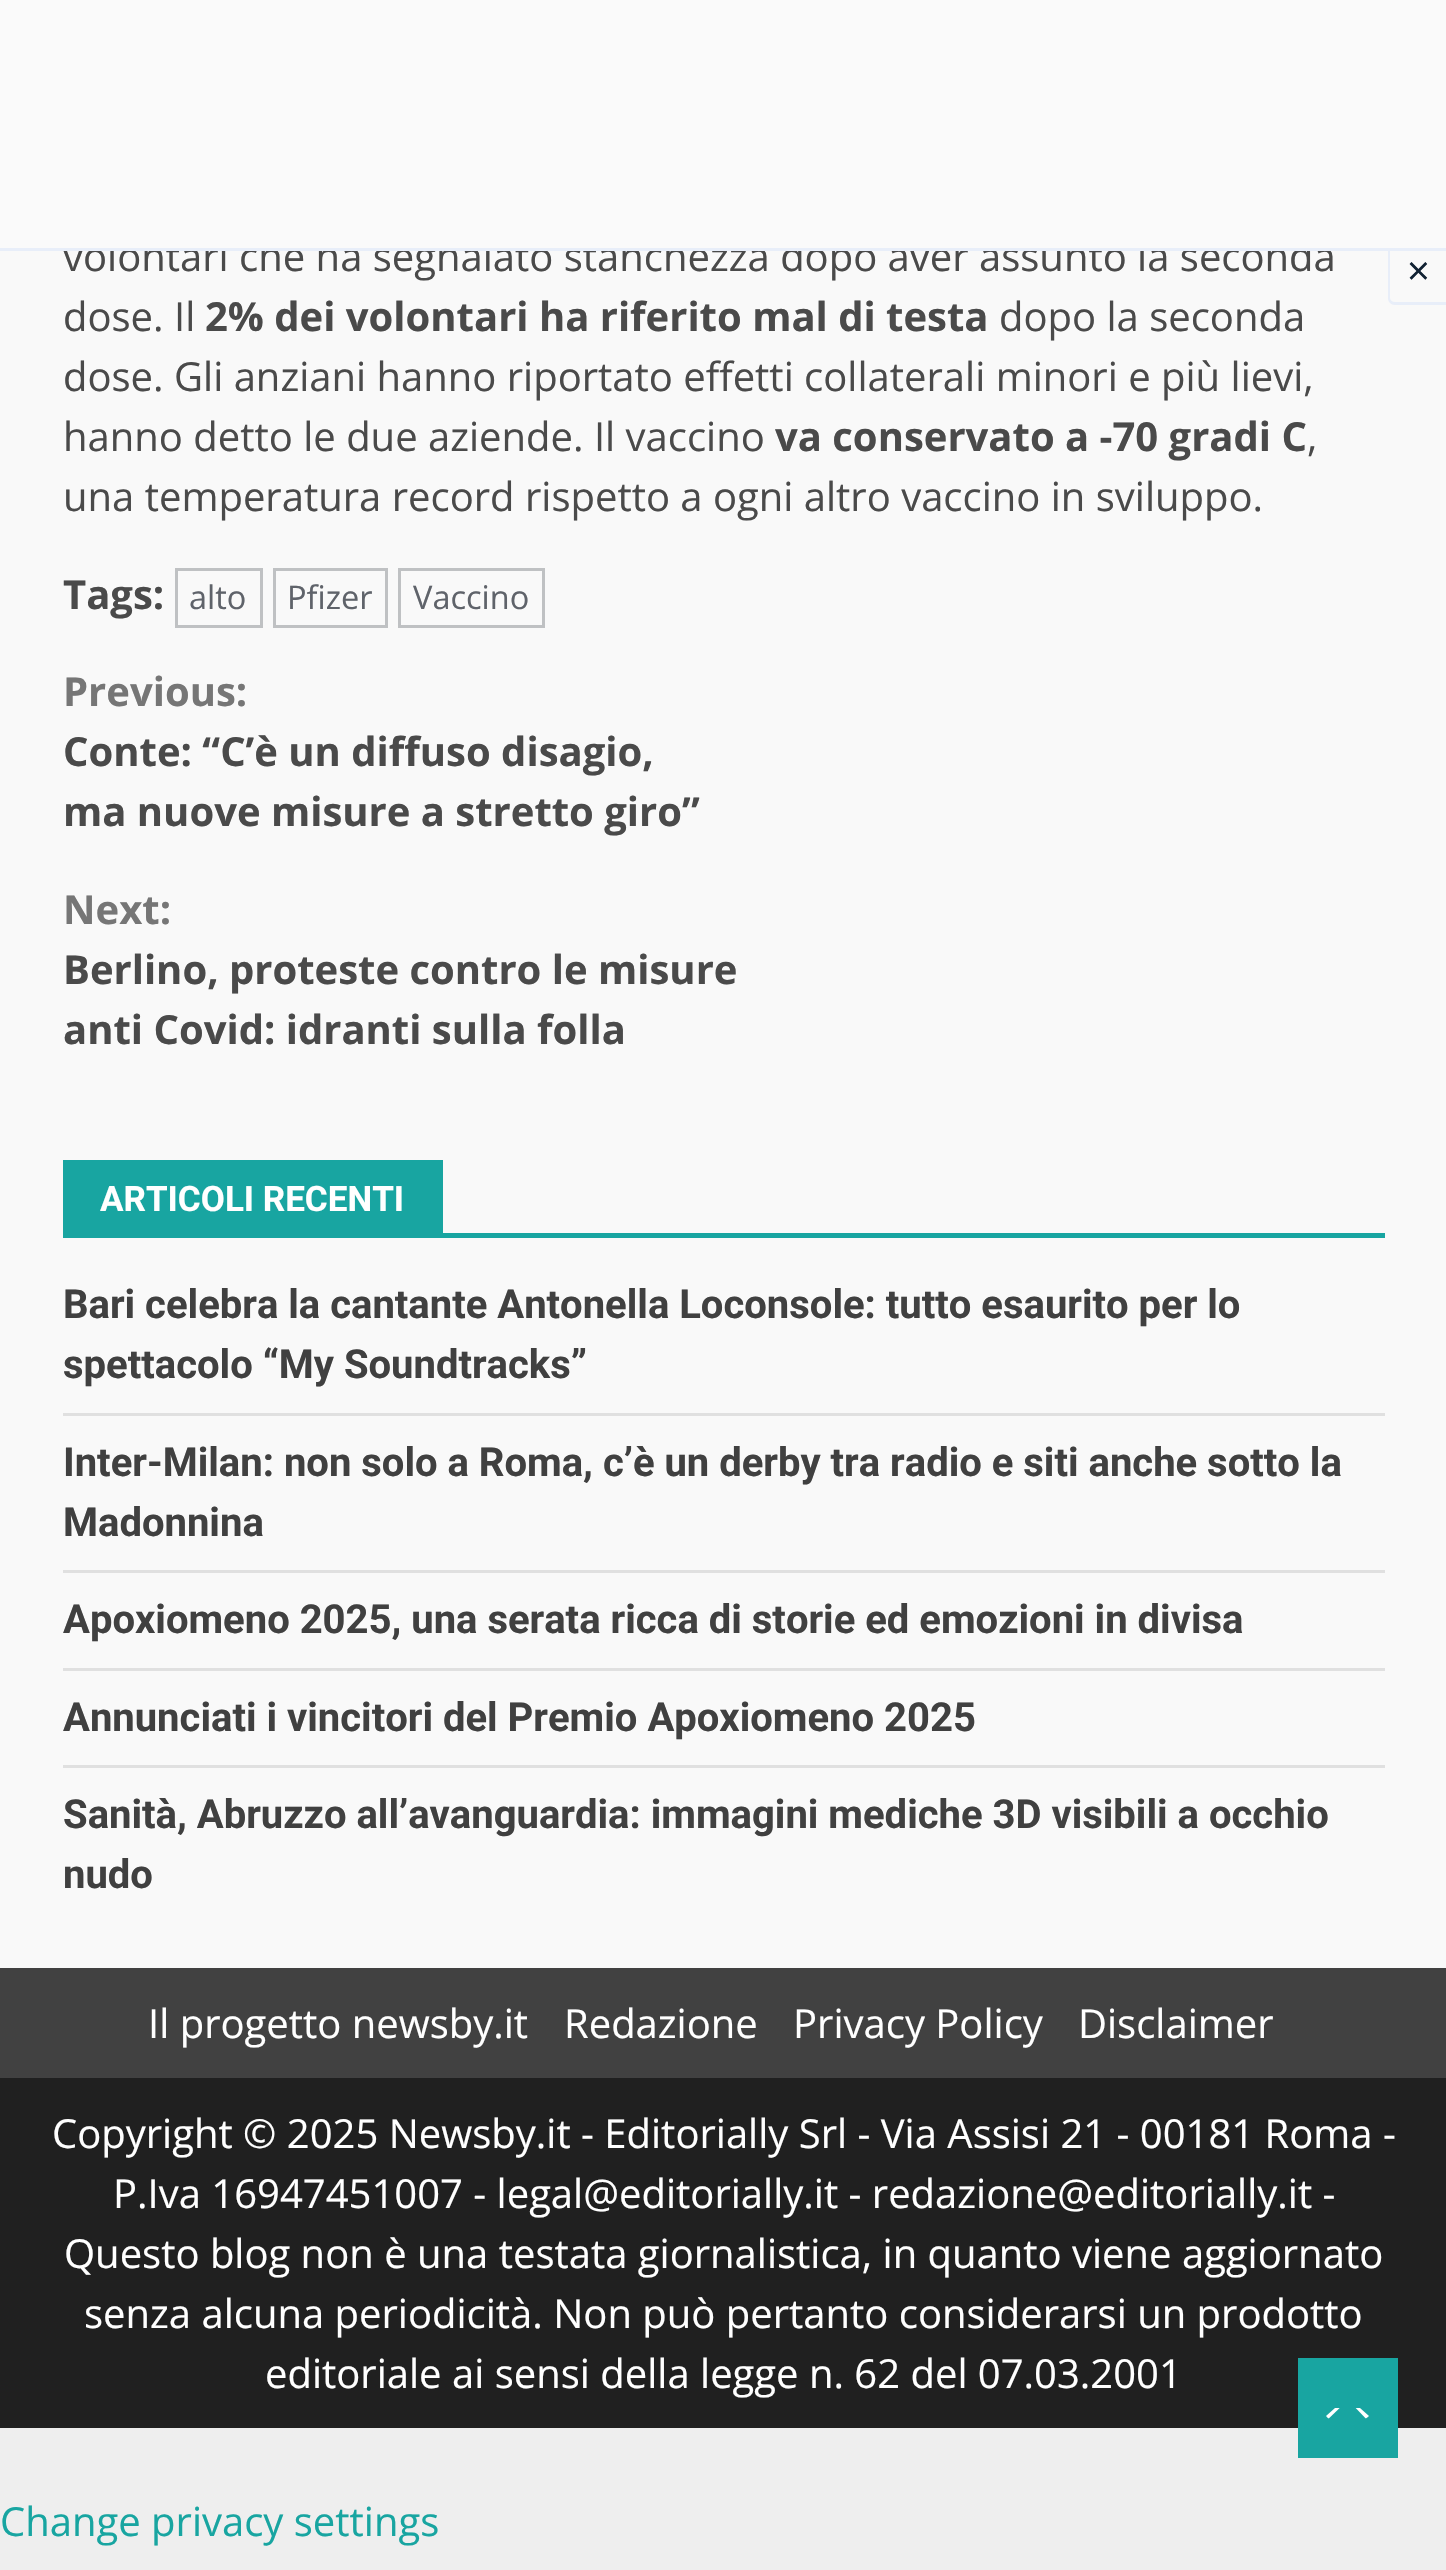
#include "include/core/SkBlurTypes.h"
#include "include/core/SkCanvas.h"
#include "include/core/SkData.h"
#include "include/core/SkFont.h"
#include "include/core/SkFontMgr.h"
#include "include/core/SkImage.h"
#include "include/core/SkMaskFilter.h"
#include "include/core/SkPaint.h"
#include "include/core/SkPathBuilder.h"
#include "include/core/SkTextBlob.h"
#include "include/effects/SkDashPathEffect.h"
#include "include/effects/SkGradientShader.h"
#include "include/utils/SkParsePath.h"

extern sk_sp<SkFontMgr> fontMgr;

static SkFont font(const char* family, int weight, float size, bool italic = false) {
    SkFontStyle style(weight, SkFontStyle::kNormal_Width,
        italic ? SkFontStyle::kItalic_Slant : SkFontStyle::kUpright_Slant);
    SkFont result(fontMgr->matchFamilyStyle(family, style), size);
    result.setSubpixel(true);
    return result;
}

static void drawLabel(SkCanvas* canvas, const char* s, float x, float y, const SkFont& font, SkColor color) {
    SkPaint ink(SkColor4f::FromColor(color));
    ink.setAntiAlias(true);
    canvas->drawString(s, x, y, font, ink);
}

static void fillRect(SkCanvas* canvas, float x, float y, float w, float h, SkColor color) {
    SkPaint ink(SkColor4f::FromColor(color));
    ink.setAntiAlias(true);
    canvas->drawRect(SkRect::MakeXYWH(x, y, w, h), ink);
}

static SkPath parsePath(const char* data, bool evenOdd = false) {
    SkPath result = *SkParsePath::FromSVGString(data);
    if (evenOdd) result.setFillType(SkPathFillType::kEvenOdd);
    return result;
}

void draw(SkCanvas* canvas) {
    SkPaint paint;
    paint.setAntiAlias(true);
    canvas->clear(0xFFEEEEEE);
    fillRect(canvas, 0, 251, 1446, 1717, 0xFFF9F9F9);
    SkFont font1 = font("Open Sans", 400, 40);
    drawLabel(canvas, "volontari che ha segnalato stanchezza dopo aver assunto la seconda", 63, 271, font1, 0xFF4A4A4A);
    drawLabel(canvas, "dose. Il", 63, 331, font1, 0xFF4A4A4A);
    SkFont font2 = font("Open Sans", 700, 40);
    drawLabel(canvas, "2% dei volontari ha riferito mal di testa", 205, 331, font2, 0xFF4A4A4A);
    drawLabel(canvas, "dopo la seconda", 999, 331, font1, 0xFF4A4A4A);
    drawLabel(canvas, "dose. Gli anziani hanno riportato effetti collaterali minori e più lievi,", 63, 391, font1, 0xFF4A4A4A);
    drawLabel(canvas, "hanno detto le due aziende. Il vaccino", 63, 451, font1, 0xFF4A4A4A);
    drawLabel(canvas, "va conservato a -70 gradi C", 775, 451, font2, 0xFF4A4A4A);
    drawLabel(canvas, ",", 1307, 451, font1, 0xFF4A4A4A);
    drawLabel(canvas, "una temperatura record rispetto a ogni altro vaccino in sviluppo.", 63, 511, font1, 0xFF4A4A4A);
    drawLabel(canvas, "Tags:", 63, 609, font2, 0xFF4A4A4A);
    paint.setStroke(true);
    paint.setStrokeWidth(3);
    paint.setColor(0xFFBFC1C3);
    canvas->drawRect(SkRect::MakeXYWH(176.5f, 569.5f, 85, 57), paint);
    SkFont font3 = font("Open Sans", 400, 32.5f);
    drawLabel(canvas, "alto", 189, 609, font3, 0xFF5F636A);
    canvas->drawRect(SkRect::MakeXYWH(274.5f, 569.5f, 112, 57), paint);
    drawLabel(canvas, "Pfizer", 287, 609, font3, 0xFF5F636A);
    canvas->drawRect(SkRect::MakeXYWH(399.5f, 569.5f, 144, 57), paint);
    drawLabel(canvas, "Vaccino", 413, 609, font3, 0xFF5F636A);
    drawLabel(canvas, "Previous:", 63, 706, font2, 0xFF767676);
    drawLabel(canvas, "Conte: “C’è un diffuso disagio,", 63, 766, font2, 0xFF4A4A4A);
    drawLabel(canvas, "ma nuove misure a stretto giro”", 63, 826, font2, 0xFF4A4A4A);
    drawLabel(canvas, "Next:", 63, 924, font2, 0xFF767676);
    drawLabel(canvas, "Berlino, proteste contro le misure", 63, 984, font2, 0xFF4A4A4A);
    drawLabel(canvas, "anti Covid: idranti sulla folla", 63, 1044, font2, 0xFF4A4A4A);
    fillRect(canvas, 63, 1233, 1322, 5, 0xFF18A5A1);
    fillRect(canvas, 63, 1160, 380, 73, 0xFF18A5A1);
    SkFont font4 = font("Roboto", 700, 35);
    drawLabel(canvas, "ARTICOLI RECENTI", 100, 1211, font4, 0xFFFFFFFF);
    fillRect(canvas, 63, 1413, 1322, 3, 0xFFE0E0E0);
    SkFont font5 = font("Roboto", 700, 40);
    drawLabel(canvas, "Bari celebra la cantante Antonella Loconsole: tutto esaurito per lo", 63, 1318, font5, 0xFF404040);
    drawLabel(canvas, "spettacolo “My Soundtracks”", 63, 1378, font5, 0xFF404040);
    fillRect(canvas, 63, 1570, 1322, 3, 0xFFE0E0E0);
    drawLabel(canvas, "Inter-Milan: non solo a Roma, c’è un derby tra radio e siti anche sotto la", 63, 1476, font5, 0xFF404040);
    drawLabel(canvas, "Madonnina", 63, 1536, font5, 0xFF404040);
    fillRect(canvas, 63, 1668, 1322, 3, 0xFFE0E0E0);
    drawLabel(canvas, "Apoxiomeno 2025, una serata ricca di storie ed emozioni in divisa", 63, 1633, font5, 0xFF404040);
    fillRect(canvas, 63, 1765, 1322, 3, 0xFFE0E0E0);
    drawLabel(canvas, "Annunciati i vincitori del Premio Apoxiomeno 2025", 63, 1731, font5, 0xFF404040);
    drawLabel(canvas, "Sanità, Abruzzo all’avanguardia: immagini mediche 3D visibili a occhio", 63, 1828, font5, 0xFF404040);
    drawLabel(canvas, "nudo", 63, 1888, font5, 0xFF404040);
    fillRect(canvas, 0, 2078, 1446, 350, 0xFF202020);
    fillRect(canvas, 0, 1968, 1446, 110, 0xFF414141);
    drawLabel(canvas, "Il progetto newsby.it", 148, 2038, font1, 0xFFFFFFFF);
    drawLabel(canvas, "Redazione", 564, 2038, font1, 0xFFFFFFFF);
    drawLabel(canvas, "Privacy Policy", 793, 2038, font1, 0xFFFFFFFF);
    drawLabel(canvas, "Disclaimer", 1078, 2038, font1, 0xFFFFFFFF);
    drawLabel(canvas, "Copyright © 2025 Newsby.it - Editorially Srl - Via Assisi 21 - 00181 Roma -", 52, 2148, font1, 0xFFFFFFFF);
    drawLabel(canvas, "P.Iva 16947451007 - legal@editorially.it - redazione@editorially.it -", 113, 2208, font1, 0xFFFFFFFF);
    drawLabel(canvas, "Questo blog non è una testata giornalistica, in quanto viene aggiornato", 64, 2268, font1, 0xFFFFFFFF);
    drawLabel(canvas, "senza alcuna periodicità. Non può pertanto considerarsi un prodotto", 84, 2328, font1, 0xFFFFFFFF);
    drawLabel(canvas, "editoriale ai sensi della legge n. 62 del 07.03.2001", 265, 2388, font1, 0xFFFFFFFF);
    paint.setStroke(false);
    paint.setColor(0xFFE8EEF9);
    canvas->drawPath(parsePath("M1388 245H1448V305H1395C1391 305 1388 302 1388 298ZM1390 245H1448V302H1395C1392 302 1390 300 1390 298Z", true), paint);
    fillRect(canvas, 0, 0, 1446, 248, 0xFFFAFAFA);
    fillRect(canvas, 0, 248, 1446, 3, 0xFFE8EEF9);
    drawLabel(canvas, "×", 1407, 285, font1, 0xFF112233);
    fillRect(canvas, 1298, 2358, 100, 100, 0xFF18A5A1);
    paint.setColor(0xFFFFFFFF);
    canvas->drawPath(parsePath("M1335 2420H1360C1364 2420 1367 2418 1369 2416L1360 2408H1335L1326 2416C1328 2419 1332 2420 1335 2420Z"), paint);
    paint.setColor(0xFF18A5A1);
    canvas->drawPath(parsePath("M1372 2425H1322L1348 2400Z"), paint);
    drawLabel(canvas, "Change privacy settings", 0, 2536, font1, 0xFF18A5A1);
}
